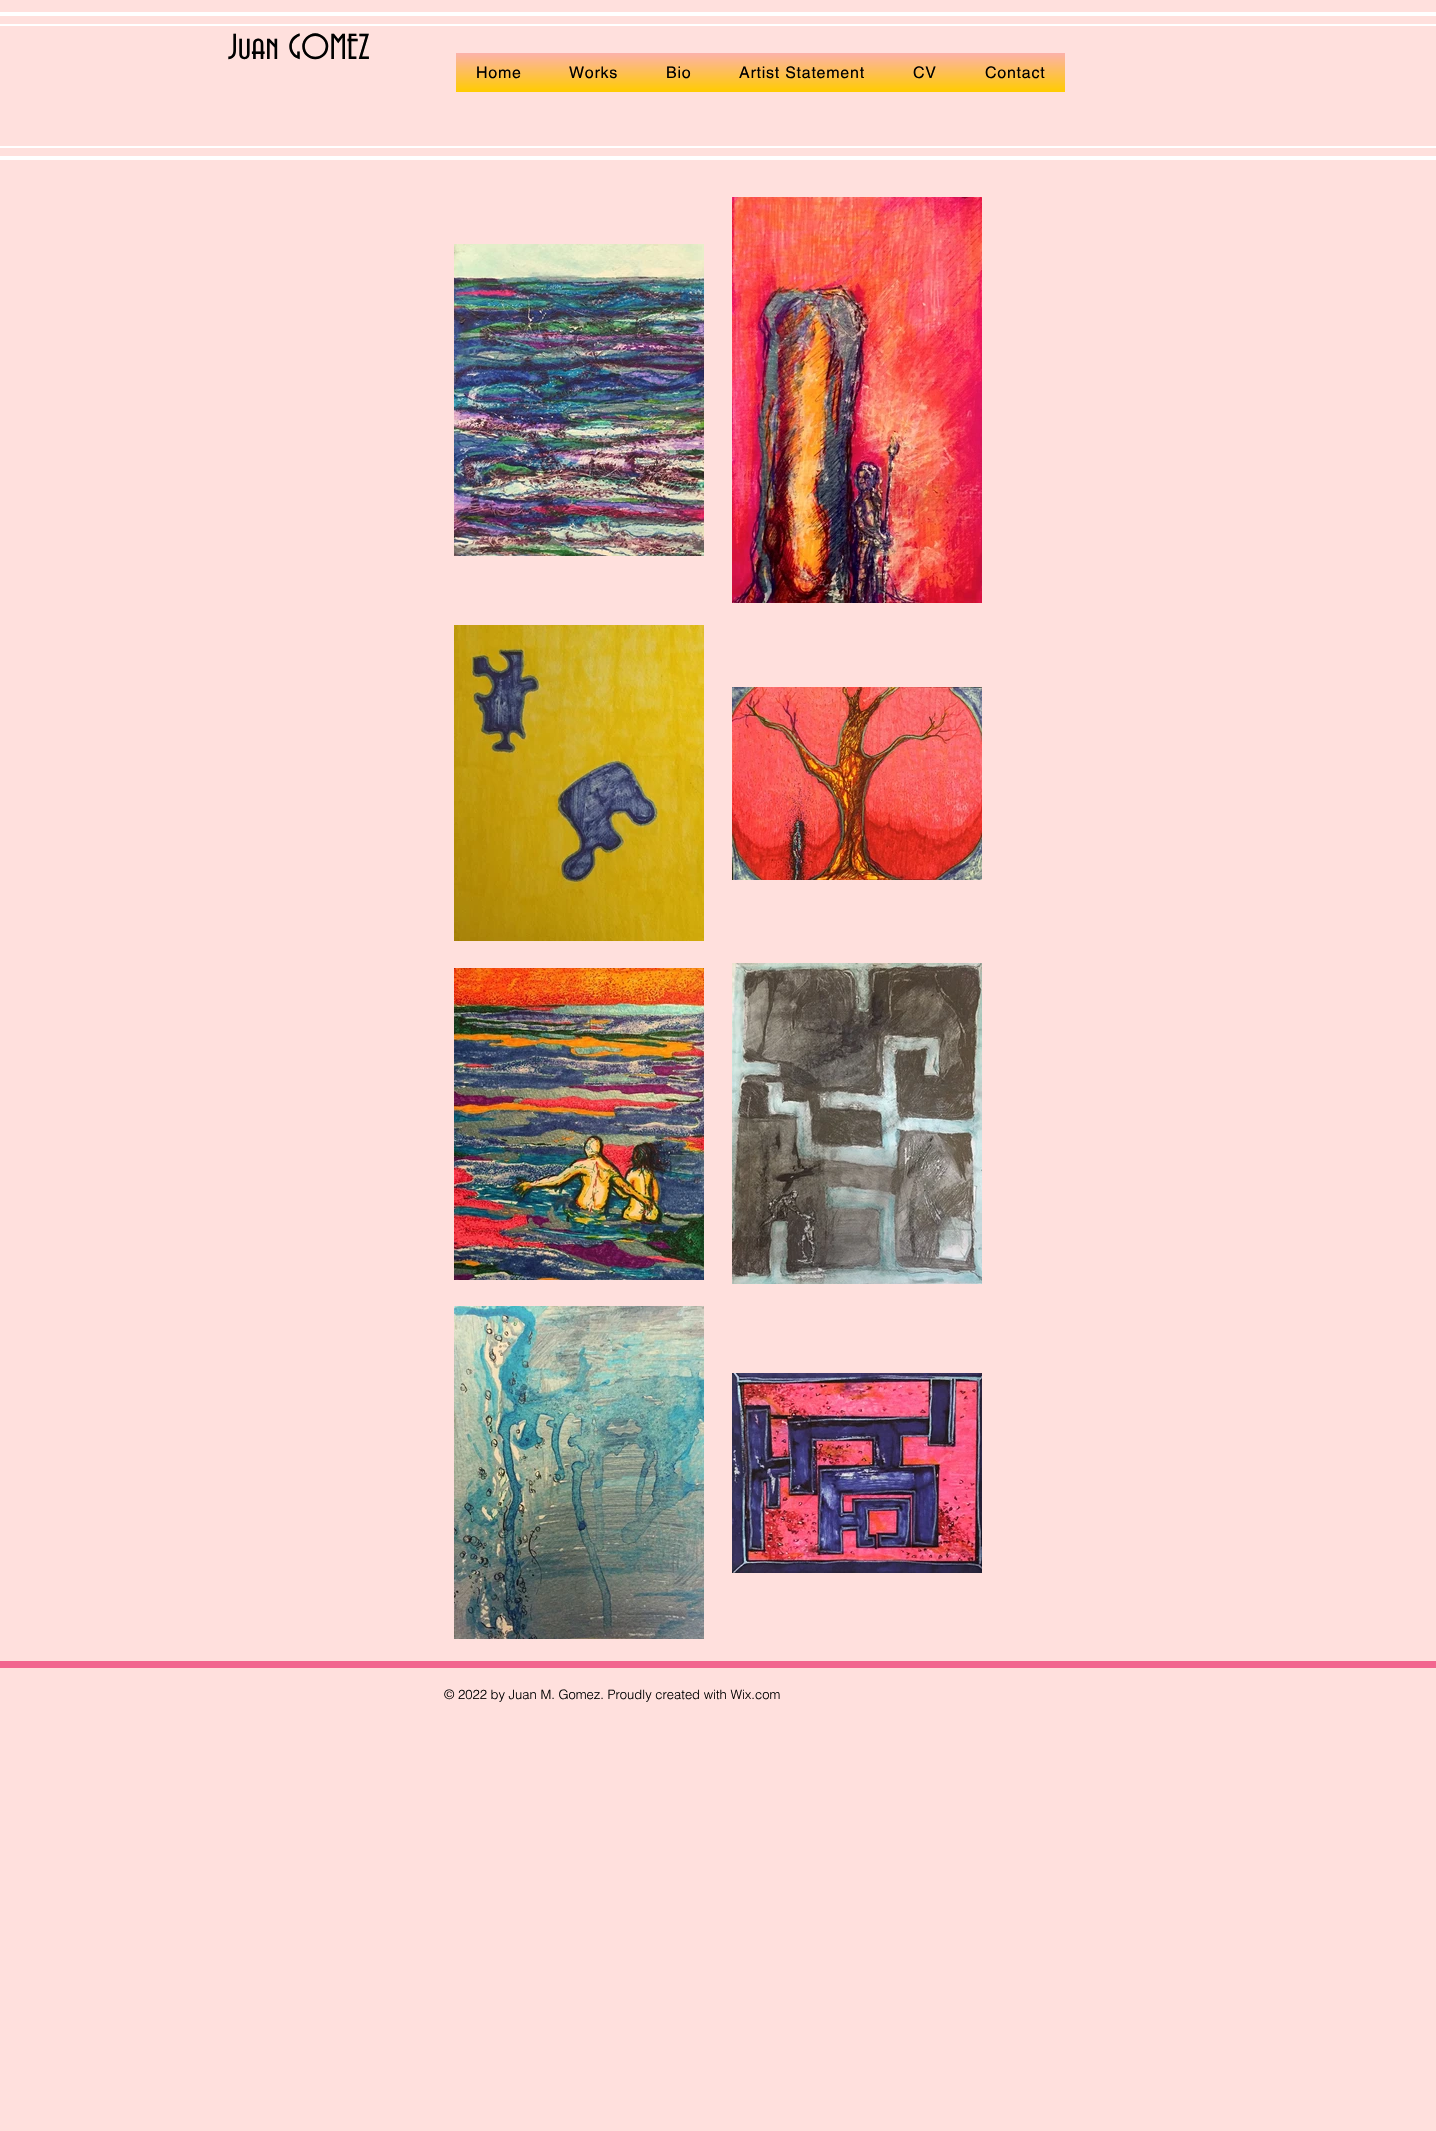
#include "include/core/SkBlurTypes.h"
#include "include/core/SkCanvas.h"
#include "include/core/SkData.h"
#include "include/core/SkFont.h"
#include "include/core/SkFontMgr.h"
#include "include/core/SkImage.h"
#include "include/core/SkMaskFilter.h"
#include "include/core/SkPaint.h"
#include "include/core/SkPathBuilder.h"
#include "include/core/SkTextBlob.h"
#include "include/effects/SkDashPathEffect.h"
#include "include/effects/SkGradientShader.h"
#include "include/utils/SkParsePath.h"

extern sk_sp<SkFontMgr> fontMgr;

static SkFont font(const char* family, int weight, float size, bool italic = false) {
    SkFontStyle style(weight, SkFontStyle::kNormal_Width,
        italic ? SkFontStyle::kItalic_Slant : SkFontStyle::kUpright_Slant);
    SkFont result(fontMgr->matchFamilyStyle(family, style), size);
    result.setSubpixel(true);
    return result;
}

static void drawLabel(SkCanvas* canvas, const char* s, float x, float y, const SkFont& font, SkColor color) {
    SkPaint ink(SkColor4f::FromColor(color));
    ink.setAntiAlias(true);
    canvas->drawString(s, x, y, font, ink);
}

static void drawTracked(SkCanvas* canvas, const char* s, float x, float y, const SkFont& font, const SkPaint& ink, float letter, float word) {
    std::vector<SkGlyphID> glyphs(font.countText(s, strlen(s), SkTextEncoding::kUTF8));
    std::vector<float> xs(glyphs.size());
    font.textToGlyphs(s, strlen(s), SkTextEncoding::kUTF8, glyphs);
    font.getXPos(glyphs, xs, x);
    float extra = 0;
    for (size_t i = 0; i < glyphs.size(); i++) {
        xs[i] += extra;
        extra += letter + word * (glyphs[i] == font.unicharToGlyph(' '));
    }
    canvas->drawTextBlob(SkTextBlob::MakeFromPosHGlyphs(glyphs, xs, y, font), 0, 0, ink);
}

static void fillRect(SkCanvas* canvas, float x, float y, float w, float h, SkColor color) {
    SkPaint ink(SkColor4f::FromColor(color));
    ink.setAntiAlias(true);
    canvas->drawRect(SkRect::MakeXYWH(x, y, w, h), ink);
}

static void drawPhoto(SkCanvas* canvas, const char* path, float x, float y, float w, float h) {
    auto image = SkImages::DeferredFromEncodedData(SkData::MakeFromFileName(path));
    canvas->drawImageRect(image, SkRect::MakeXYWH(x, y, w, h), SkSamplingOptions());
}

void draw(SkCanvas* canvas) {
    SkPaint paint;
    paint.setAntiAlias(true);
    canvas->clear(0xFFFFE0DD);
    fillRect(canvas, 0, 12, 1436, 4, 0xFFFFFFFF);
    fillRect(canvas, 0, 156, 1436, 4, 0xFFFFFFFF);
    fillRect(canvas, 0, 24, 1436, 2, 0xFFFFFFFF);
    fillRect(canvas, 0, 146, 1436, 2, 0xFFFFFFFF);
    SkFont font1 = font("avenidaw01", 400, 38);
    drawLabel(canvas, "Juan GOMEZ", 228, 59, font1, 0xFF000000);
    {
        const SkColor colors[] = {0xFFFCB2AB, 0xFFFFCC00};
        const float stops[] = {0, 1};
        const SkPoint ends[] = {{761, 53}, {761, 92}};
        paint.setShader(SkGradientShader::MakeLinear(ends, colors, stops, 2, SkTileMode::kClamp));
        paint.setAlpha(255);
    }
    canvas->drawRect(SkRect::MakeXYWH(456, 53, 609, 39), paint);
    SkFont font2 = font("helvetica", 400, 16);
    paint.setShader(nullptr);
    paint.setColor(0xFF000000);
    drawTracked(canvas, "Home", 476, 78, font2, paint, 0.75f, 0);
    drawTracked(canvas, "Works", 569, 78, font2, paint, 0.75f, 0);
    drawTracked(canvas, "Bio", 666, 78, font2, paint, 0.75f, 0);
    drawTracked(canvas, "Artist Statement", 739, 78, font2, paint, 0.75f, 0);
    drawTracked(canvas, "CV", 913, 78, font2, paint, 0.75f, 0);
    drawTracked(canvas, "Contact", 985, 78, font2, paint, 0.75f, 0);
    drawPhoto(canvas, "assets/img1.png", 454, 244, 250, 312);
    drawPhoto(canvas, "assets/img2.png", 732, 197, 250, 406);
    drawPhoto(canvas, "assets/img3.png", 454, 625, 250, 316);
    drawPhoto(canvas, "assets/img4.png", 732, 687, 250, 193);
    drawPhoto(canvas, "assets/img5.png", 454, 968, 250, 312);
    drawPhoto(canvas, "assets/img6.png", 732, 963, 250, 321);
    drawPhoto(canvas, "assets/img7.png", 454, 1306, 250, 333);
    drawPhoto(canvas, "assets/img8.png", 732, 1373, 250, 200);
    fillRect(canvas, 0, 1661, 1436, 7, 0xFFF2668F);
    SkFont font3 = font("helvetica", 300, 13);
    drawLabel(canvas, "© 2022 by Juan M. Gomez. Proudly created with Wix.com", 444, 1699, font3, 0xFF000000);
}
